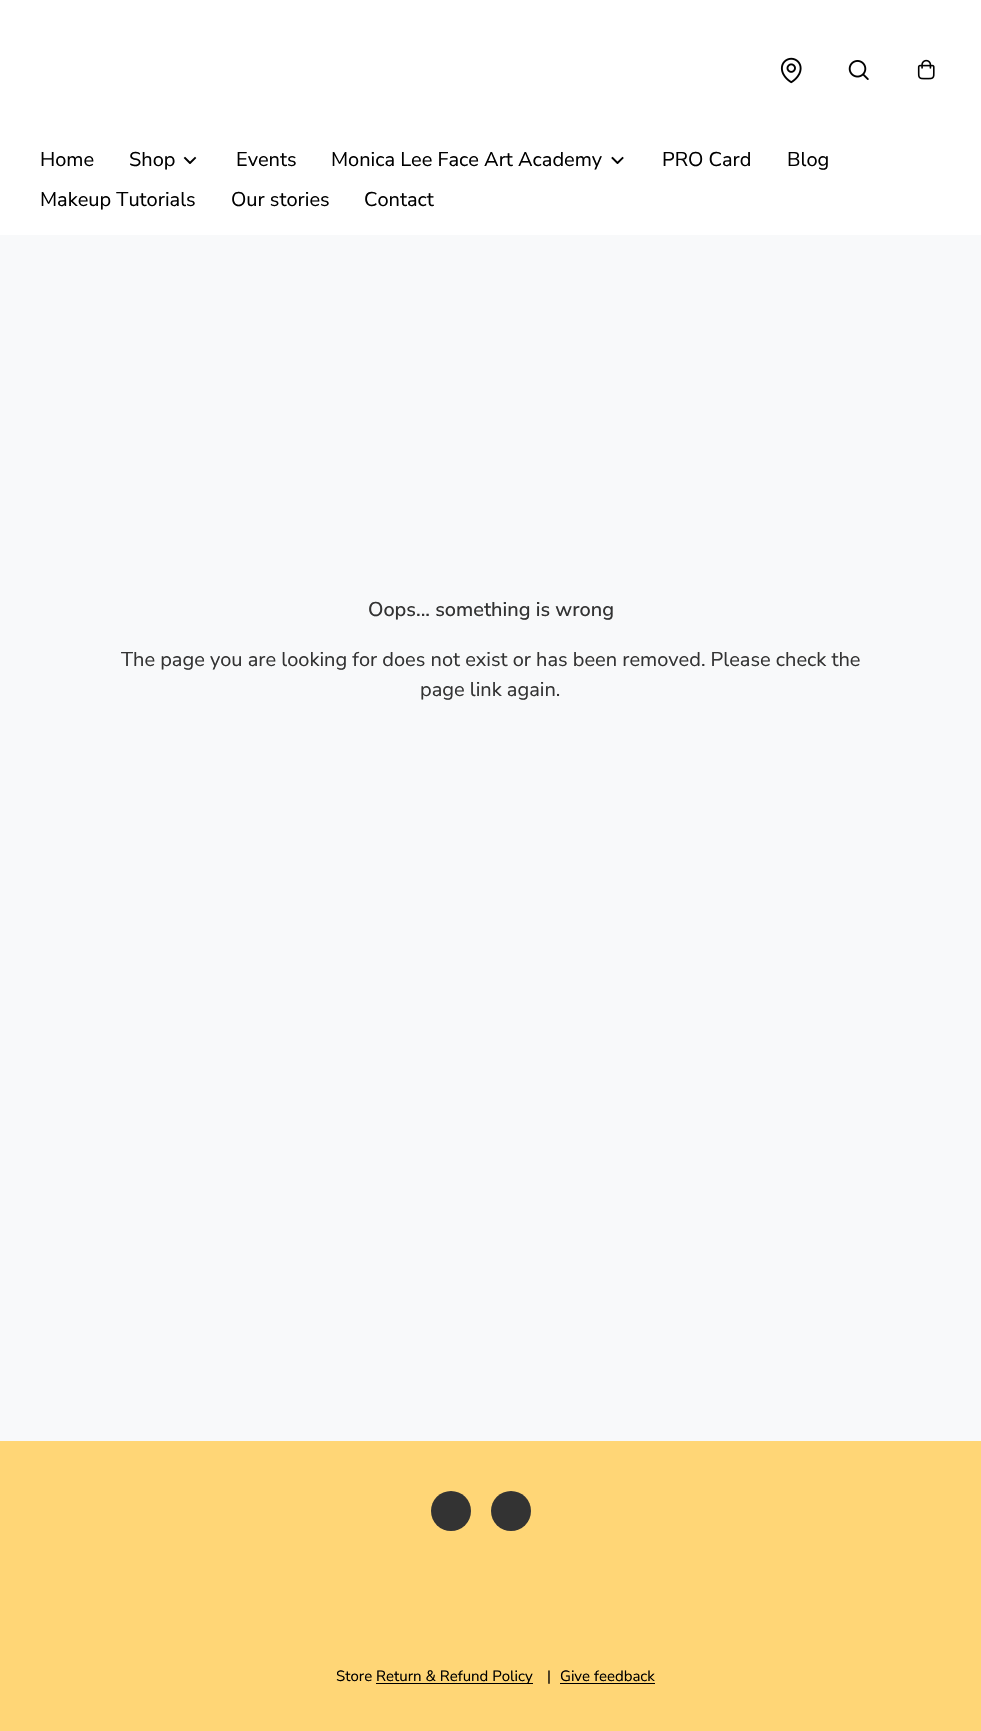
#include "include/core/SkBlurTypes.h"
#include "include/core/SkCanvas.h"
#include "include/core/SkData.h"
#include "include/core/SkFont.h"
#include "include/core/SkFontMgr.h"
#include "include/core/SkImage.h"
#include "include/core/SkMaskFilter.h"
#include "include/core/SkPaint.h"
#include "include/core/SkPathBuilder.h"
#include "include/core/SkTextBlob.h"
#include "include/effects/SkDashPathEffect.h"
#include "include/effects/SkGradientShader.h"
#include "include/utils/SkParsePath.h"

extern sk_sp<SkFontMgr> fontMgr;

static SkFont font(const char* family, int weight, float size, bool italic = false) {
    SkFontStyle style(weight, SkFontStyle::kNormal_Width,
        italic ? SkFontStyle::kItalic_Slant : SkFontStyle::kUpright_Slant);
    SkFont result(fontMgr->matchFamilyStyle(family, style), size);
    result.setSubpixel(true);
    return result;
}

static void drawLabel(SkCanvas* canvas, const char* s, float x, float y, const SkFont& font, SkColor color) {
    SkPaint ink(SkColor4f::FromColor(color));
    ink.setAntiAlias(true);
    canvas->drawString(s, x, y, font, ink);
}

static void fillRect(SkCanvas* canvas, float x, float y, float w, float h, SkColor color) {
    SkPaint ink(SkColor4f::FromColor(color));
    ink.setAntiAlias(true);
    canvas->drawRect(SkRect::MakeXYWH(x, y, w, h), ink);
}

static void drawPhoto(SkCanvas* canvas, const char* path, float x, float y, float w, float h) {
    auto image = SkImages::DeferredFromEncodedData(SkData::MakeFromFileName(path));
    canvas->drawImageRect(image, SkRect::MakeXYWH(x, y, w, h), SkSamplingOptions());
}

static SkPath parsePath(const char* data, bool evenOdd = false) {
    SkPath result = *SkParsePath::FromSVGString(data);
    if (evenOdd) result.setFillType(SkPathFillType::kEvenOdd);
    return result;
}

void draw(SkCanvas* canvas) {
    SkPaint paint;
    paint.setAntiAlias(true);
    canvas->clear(0xFFF8F9FA);
    fillRect(canvas, 0, 0, 981, 235, 0xFFFFFFFF);
    drawPhoto(canvas, "assets/img1.png", 780, 57, 22, 27);
    drawPhoto(canvas, "assets/img2.png", 848, 60, 21, 20);
    drawPhoto(canvas, "assets/img3.png", 917, 59, 18, 21);
    SkFont font1 = font("Nunito Sans", 400, 20);
    drawLabel(canvas, "Home", 40, 166, font1, 0xFF000000);
    drawLabel(canvas, "Shop", 129, 166, font1, 0xFF000000);
    paint.setStroke(true);
    paint.setStrokeWidth(1.9f);
    paint.setStrokeCap(SkPaint::kSquare_Cap);
    paint.setStrokeJoin(SkPaint::kRound_Join);
    paint.setColor(0xFF000000);
    canvas->drawPath(parsePath("M185 158L190 163L195 158"), paint);
    drawLabel(canvas, "Events", 236, 166, font1, 0xFF000000);
    drawLabel(canvas, "Monica Lee Face Art Academy", 331, 166, font1, 0xFF000000);
    canvas->drawPath(parsePath("M612.5 158L617.5 163L622.5 158"), paint);
    drawLabel(canvas, "PRO Card", 662, 166, font1, 0xFF000000);
    drawLabel(canvas, "Blog", 787, 166, font1, 0xFF000000);
    drawLabel(canvas, "Makeup Tutorials", 40, 206, font1, 0xFF000000);
    drawLabel(canvas, "Our stories", 231, 206, font1, 0xFF000000);
    drawLabel(canvas, "Contact", 364, 206, font1, 0xFF000000);
    SkFont font2 = font("Nunito Sans", 500, 20);
    drawLabel(canvas, "Oops... something is wrong", 368, 616, font2, 0xFF333333);
    drawLabel(canvas, "The page you are looking for does not exist or has been removed. Please check the", 121, 666, font1, 0xFF333333);
    drawLabel(canvas, "page link again.", 420, 696, font1, 0xFF333333);
    fillRect(canvas, 0, 1441, 981, 290, 0xFFFFD676);
    paint.setStroke(false);
    paint.setColor(0xFF333333);
    canvas->drawCircle(451, 1511, 20, paint);
    canvas->drawCircle(511, 1511, 20, paint);
    SkFont font3 = font("Nunito Sans", 400, 15);
    drawLabel(canvas, "Store", 336, 1681, font3, 0xFF000000);
    fillRect(canvas, 376, 1683, 157, 1, 0xFF000000);
    drawLabel(canvas, "Return & Refund Policy", 376, 1681, font3, 0xFF000000);
    drawLabel(canvas, "|", 547, 1681, font3, 0xFF000000);
    drawLabel(canvas, "Give feedback", 560, 1681, font3, 0xFF000000);
    fillRect(canvas, 560, 1683, 95, 1, 0xFF000000);
}
